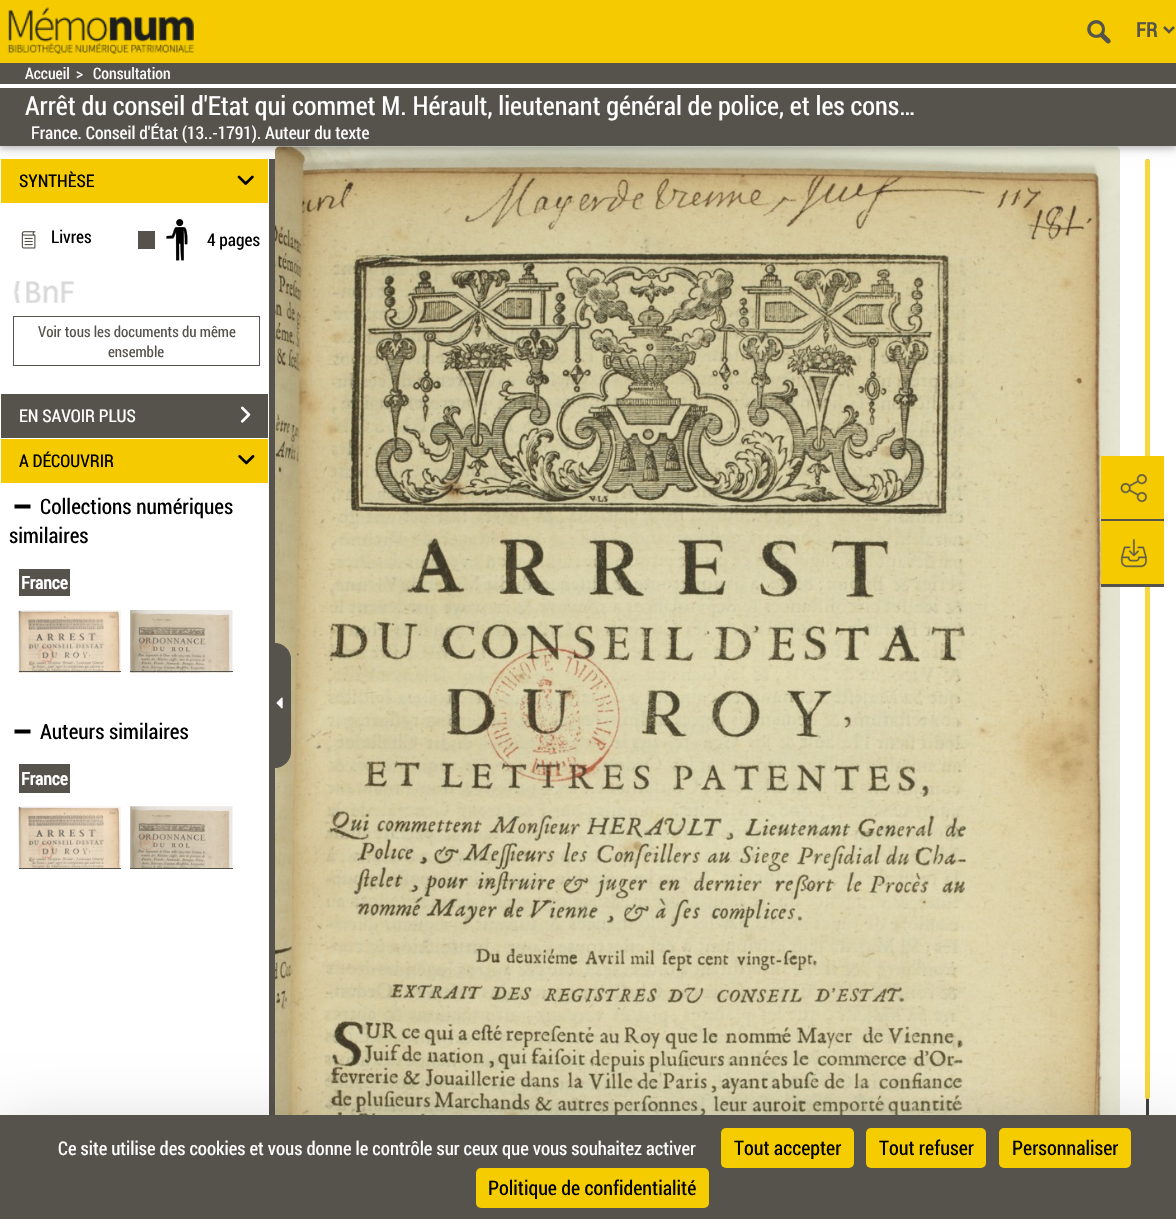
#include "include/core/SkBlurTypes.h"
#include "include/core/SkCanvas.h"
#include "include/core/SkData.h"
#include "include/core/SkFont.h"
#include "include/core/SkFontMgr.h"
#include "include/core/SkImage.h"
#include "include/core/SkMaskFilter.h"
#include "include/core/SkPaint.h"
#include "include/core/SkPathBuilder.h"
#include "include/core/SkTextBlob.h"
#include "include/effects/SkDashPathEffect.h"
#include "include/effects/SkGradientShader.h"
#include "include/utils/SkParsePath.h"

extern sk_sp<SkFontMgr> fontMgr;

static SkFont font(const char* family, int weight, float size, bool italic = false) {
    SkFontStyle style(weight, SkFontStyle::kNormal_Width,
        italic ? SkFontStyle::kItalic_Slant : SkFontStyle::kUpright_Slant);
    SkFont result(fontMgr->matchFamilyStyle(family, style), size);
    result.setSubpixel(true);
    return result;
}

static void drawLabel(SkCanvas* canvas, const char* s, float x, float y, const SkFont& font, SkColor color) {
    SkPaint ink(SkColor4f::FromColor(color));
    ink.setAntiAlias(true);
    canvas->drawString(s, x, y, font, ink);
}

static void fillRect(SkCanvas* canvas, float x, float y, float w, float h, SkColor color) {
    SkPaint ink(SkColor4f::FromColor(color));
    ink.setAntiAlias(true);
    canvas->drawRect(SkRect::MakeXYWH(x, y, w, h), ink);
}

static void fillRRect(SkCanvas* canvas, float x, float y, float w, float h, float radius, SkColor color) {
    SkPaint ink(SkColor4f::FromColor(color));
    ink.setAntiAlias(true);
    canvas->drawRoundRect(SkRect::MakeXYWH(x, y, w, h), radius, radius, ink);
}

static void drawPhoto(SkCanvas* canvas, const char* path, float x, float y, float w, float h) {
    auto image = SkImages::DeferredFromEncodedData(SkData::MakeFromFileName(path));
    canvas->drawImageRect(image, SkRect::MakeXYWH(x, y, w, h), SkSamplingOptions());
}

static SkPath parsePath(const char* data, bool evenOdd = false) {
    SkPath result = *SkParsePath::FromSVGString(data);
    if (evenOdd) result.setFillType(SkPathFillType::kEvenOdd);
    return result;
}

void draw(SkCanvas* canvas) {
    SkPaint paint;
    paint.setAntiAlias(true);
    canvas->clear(0xFFFFFFFF);
    drawPhoto(canvas, "assets/img14.png", 275, 146, 845, 969);
    fillRRect(canvas, 1146, 159, 3, 1049, 1.5f, 0xFF404040);
    fillRRect(canvas, 1145, 159, 5, 940, 2.5f, 0xFFF8D840);
    paint.setColor(0x1F000000);
    paint.setMaskFilter(SkMaskFilter::MakeBlur(kNormal_SkBlurStyle, 6));
    canvas->drawRect(SkRect::MakeXYWH(0, 65, 1176, 84), paint);
    paint.setMaskFilter(nullptr);
    paint.setColor(0x29000000);
    paint.setMaskFilter(SkMaskFilter::MakeBlur(kNormal_SkBlurStyle, 2.5f));
    canvas->drawRect(SkRect::MakeXYWH(0, 65, 1176, 84), paint);
    paint.setMaskFilter(nullptr);
    fillRect(canvas, 0, 0, 1176, 63, 0xFFF5CB00);
    drawPhoto(canvas, "assets/img1.png", 7, 7, 187, 47);
    drawPhoto(canvas, "assets/img2.png", 1087, 20, 24, 24);
    paint.setStroke(true);
    paint.setStrokeWidth(2.5f);
    paint.setColor(0xFF56534C);
    canvas->drawPath(parsePath("M1164 27L1169 32L1174 27"), paint);
    SkFont font1 = font("Roboto Condensed", 700, 20);
    drawLabel(canvas, "FR", 1136, 37, font1, 0xFF56534C);
    fillRect(canvas, 0, 63, 1176, 83, 0xFF56534C);
    fillRect(canvas, 0, 84, 1176, 4, 0xFFFFFFFF);
    SkFont font2 = font("Roboto Condensed", 400, 15.75f);
    drawLabel(canvas, "Accueil", 25, 79, font2, 0xFFFFFFFF);
    drawLabel(canvas, ">", 76, 79, font2, 0xFFFFFFFF);
    drawLabel(canvas, "Consultation", 93, 79, font2, 0xFFFFFFFF);
    SkFont font3 = font("Roboto Condensed", 400, 26.25f);
    drawLabel(canvas, "Arrêt du conseil d'Etat qui commet M. Hérault, lieutenant général de police, et les cons…", 25, 115, font3, 0xFFFFFFFF);
    SkFont font4 = font("Roboto Condensed", 400, 17.5f);
    drawLabel(canvas, "France. Conseil d'État (13..-1791). Auteur du texte", 31, 139, font4, 0xFFFFFFFF);
    fillRect(canvas, 269, 159, 6, 956, 0xFF56534C);
    fillRect(canvas, 1, 159, 267, 44, 0xFFF5CB00);
    drawLabel(canvas, "SYNTHÈSE", 19, 187, font4, 0xFF000000);
    drawPhoto(canvas, "assets/img3.png", 237, 175, 17, 10);
    drawPhoto(canvas, "assets/img4.png", 21, 231, 15, 18);
    drawLabel(canvas, "Livres", 51, 243, font4, 0xFF000000);
    fillRect(canvas, 138, 231, 17, 18, 0xFF56534C);
    drawPhoto(canvas, "assets/img5.png", 166, 219, 22, 42);
    drawLabel(canvas, "4 pages", 207, 246, font4, 0xFF000000);
    drawPhoto(canvas, "assets/img6.png", 13, 281, 61, 22);
    paint.setStrokeWidth(1);
    canvas->drawRect(SkRect::MakeXYWH(13.5f, 316.5f, 246, 49), paint);
    SkFont font5 = font("Roboto Condensed", 400, 15);
    drawLabel(canvas, "Voir tous les documents du même", 38, 337, font5, 0xFF56534C);
    drawLabel(canvas, "ensemble", 108, 357, font5, 0xFF56534C);
    fillRect(canvas, 1, 394, 267, 44, 0xFF56534C);
    drawLabel(canvas, "EN SAVOIR PLUS", 19, 422, font4, 0xFFFFFFFF);
    drawPhoto(canvas, "assets/img7.png", 240, 406, 11, 17);
    fillRect(canvas, 1, 439, 267, 44, 0xFFF5CB00);
    drawLabel(canvas, "A DÉCOUVRIR", 19, 467, font4, 0xFF000000);
    drawPhoto(canvas, "assets/img8.png", 238, 455, 17, 10);
    SkFont font6 = font("Roboto Condensed", 400, 21.25f);
    drawLabel(canvas, "Collections numériques", 40, 514, font6, 0xFF000000);
    paint.setStroke(false);
    paint.setColor(0xFF000000);
    canvas->drawPath(parsePath("M20.5 508.5H14.5V504.5H30.5V508.5Z"), paint);
    drawLabel(canvas, "similaires", 9, 543, font6, 0xFF000000);
    fillRect(canvas, 19, 569, 51, 27, 0xFF56534C);
    SkFont font7 = font("Roboto Condensed", 700, 17.5f);
    drawLabel(canvas, "France", 21, 589, font7, 0xFFFFFFFF);
    drawPhoto(canvas, "assets/img9.png", 18, 610, 103, 63);
    fillRect(canvas, 19, 671, 102, 1, 0xFF56534C);
    drawPhoto(canvas, "assets/img10.png", 130, 610, 103, 63);
    fillRect(canvas, 130, 671, 103, 1, 0xFF56534C);
    drawLabel(canvas, "Auteurs similaires", 40, 739, font6, 0xFF000000);
    canvas->drawPath(parsePath("M20.5 733.5H14.5V729.5H30.5V733.5Z"), paint);
    fillRect(canvas, 19, 764, 51, 29, 0xFF56534C);
    drawLabel(canvas, "France", 21, 785, font7, 0xFFFFFFFF);
    drawPhoto(canvas, "assets/img11.png", 18, 806, 103, 63);
    fillRect(canvas, 19, 868, 102, 1, 0xFF56534C);
    drawPhoto(canvas, "assets/img12.png", 130, 806, 103, 62);
    fillRect(canvas, 130, 868, 103, 1, 0xFF56534C);
    paint.setColor(0xFF56534C);
    canvas->drawPath(parsePath("M275.5 643.5H275C283.5 643.5 290.5 650.5 290.5 659V752C290.5 760.5 283.5 767.5 275 767.5H275.5Z"), paint);
    paint.setStroke(true);
    canvas->drawPath(parsePath("M275.5 643.5H275C283.5 643.5 290.5 650.5 290.5 659V752C290.5 760.5 283.5 767.5 275 767.5H275.5Z"), paint);
    drawPhoto(canvas, "assets/img13.png", 276, 697, 7, 12);
    fillRect(canvas, 1101, 456, 63, 63, 0xFFF5CB00);
    drawPhoto(canvas, "assets/img15.png", 1120, 474, 27, 29);
    fillRect(canvas, 1101, 519, 63, 2, 0xFF56534C);
    fillRect(canvas, 1101, 521, 63, 63, 0xFFF5CB00);
    drawPhoto(canvas, "assets/img16.png", 1120, 539, 27, 29);
    fillRect(canvas, 1101, 584, 63, 3, 0xFF56534C);
    paint.setStroke(false);
    paint.setColor(0x40000000);
    paint.setMaskFilter(SkMaskFilter::MakeBlur(kNormal_SkBlurStyle, 37.5f));
    canvas->drawRect(SkRect::MakeXYWH(0, 1140, 1176, 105), paint);
    paint.setMaskFilter(nullptr);
    fillRect(canvas, 0, 1115, 1176, 104, 0xFF56534C);
    SkFont font8 = font("Roboto Condensed", 400, 18.75f);
    drawLabel(canvas, "Ce site utilise des cookies et vous donne le contrôle sur ceux que vous souhaitez activer", 58, 1155, font8, 0xFFFFFFFF);
    fillRRect(canvas, 721, 1128, 133, 40, 5, 0xFFF5CC00);
    SkFont font9 = font("Roboto Condensed", 400, 20);
    drawLabel(canvas, "Tout accepter", 734, 1155, font9, 0xFF000000);
    fillRRect(canvas, 866, 1128, 120, 40, 5, 0xFFF5CC00);
    drawLabel(canvas, "Tout refuser", 879, 1155, font9, 0xFF000000);
    fillRRect(canvas, 999, 1128, 132, 40, 5, 0xFFF5CC00);
    drawLabel(canvas, "Personnaliser", 1012, 1155, font9, 0xFF000000);
    fillRRect(canvas, 476, 1168, 233, 40, 5, 0xFFF5CC00);
    drawLabel(canvas, "Politique de confidentialité", 488, 1195, font9, 0xFF000000);
}
